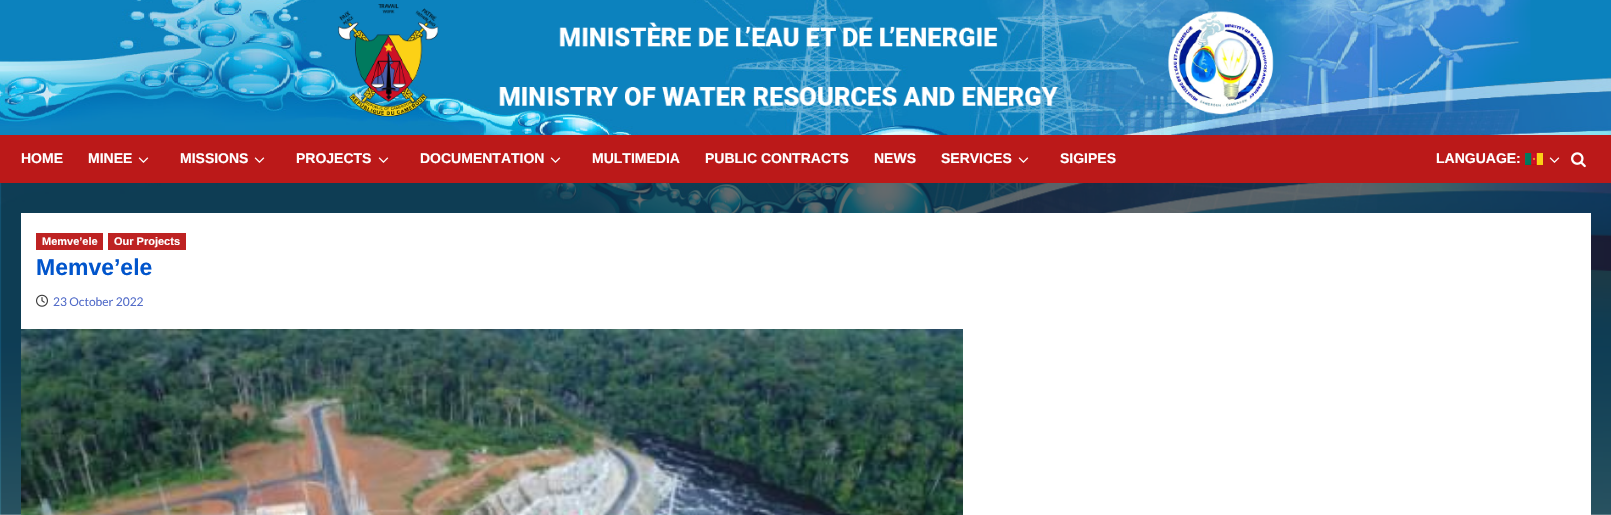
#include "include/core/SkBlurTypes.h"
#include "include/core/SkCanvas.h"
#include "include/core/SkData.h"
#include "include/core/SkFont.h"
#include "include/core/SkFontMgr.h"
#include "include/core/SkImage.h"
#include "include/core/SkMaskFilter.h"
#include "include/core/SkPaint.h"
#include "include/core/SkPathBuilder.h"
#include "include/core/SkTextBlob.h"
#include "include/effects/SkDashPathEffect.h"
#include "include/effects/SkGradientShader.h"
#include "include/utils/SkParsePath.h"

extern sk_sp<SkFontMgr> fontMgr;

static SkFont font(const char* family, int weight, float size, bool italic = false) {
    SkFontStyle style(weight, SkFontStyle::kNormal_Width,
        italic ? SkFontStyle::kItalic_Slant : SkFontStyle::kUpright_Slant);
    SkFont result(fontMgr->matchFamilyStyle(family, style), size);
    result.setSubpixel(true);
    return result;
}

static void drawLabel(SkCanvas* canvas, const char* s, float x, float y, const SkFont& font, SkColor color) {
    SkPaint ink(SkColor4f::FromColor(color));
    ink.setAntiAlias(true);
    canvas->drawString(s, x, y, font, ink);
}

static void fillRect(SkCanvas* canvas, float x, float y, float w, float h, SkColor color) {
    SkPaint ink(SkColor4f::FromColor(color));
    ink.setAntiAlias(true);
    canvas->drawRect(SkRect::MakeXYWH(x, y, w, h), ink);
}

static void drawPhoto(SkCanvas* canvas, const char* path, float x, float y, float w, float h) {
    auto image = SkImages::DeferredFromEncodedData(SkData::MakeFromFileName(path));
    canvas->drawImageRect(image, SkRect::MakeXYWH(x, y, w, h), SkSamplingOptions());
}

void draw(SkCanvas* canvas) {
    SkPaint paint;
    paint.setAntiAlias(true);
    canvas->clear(0xFFFFFFFF);
    drawPhoto(canvas, "assets/img1.png", 0, 183, 1611, 332);
    drawPhoto(canvas, "assets/img2.png", 0, 0, 1611, 135);
    fillRect(canvas, 0, 135, 1611, 48, 0xFFBB1919);
    SkFont font1 = font("Liberation Sans", 700, 14);
    drawLabel(canvas, "HOME", 21, 163, font1, 0xFFFFFFFF);
    drawLabel(canvas, "MINEE", 88, 163, font1, 0xFFFFFFFF);
    drawPhoto(canvas, "assets/img3.png", 138, 157, 11, 6);
    drawLabel(canvas, "MISSIONS", 180, 163, font1, 0xFFFFFFFF);
    drawPhoto(canvas, "assets/img3.png", 254, 157, 11, 6);
    drawLabel(canvas, "PROJECTS", 296, 163, font1, 0xFFFFFFFF);
    drawPhoto(canvas, "assets/img3.png", 378, 157, 11, 6);
    drawLabel(canvas, "DOCUMENTATION", 420, 163, font1, 0xFFFFFFFF);
    drawPhoto(canvas, "assets/img3.png", 550, 157, 11, 6);
    drawLabel(canvas, "MULTIMEDIA", 592, 163, font1, 0xFFFFFFFF);
    drawLabel(canvas, "PUBLIC CONTRACTS", 705, 163, font1, 0xFFFFFFFF);
    drawLabel(canvas, "NEWS", 874, 163, font1, 0xFFFFFFFF);
    drawLabel(canvas, "SERVICES", 941, 163, font1, 0xFFFFFFFF);
    drawPhoto(canvas, "assets/img3.png", 1018, 157, 11, 6);
    drawLabel(canvas, "SIGIPES", 1060, 163, font1, 0xFFFFFFFF);
    drawLabel(canvas, "LANGUAGE:", 1436, 163, font1, 0xFFFFFFFF);
    drawPhoto(canvas, "assets/img4.png", 1525, 153, 18, 12);
    drawPhoto(canvas, "assets/img3.png", 1549, 157, 11, 6);
    drawPhoto(canvas, "assets/img5.png", 1571, 152, 15, 16);
    fillRect(canvas, 21, 213, 1570, 302, 0xFFFFFFFF);
    fillRect(canvas, 36, 233, 67, 17, 0xFFBE2222);
    SkFont font2 = font("Liberation Sans", 700, 11);
    drawLabel(canvas, "Memve’ele", 42, 245, font2, 0xFFFFFFFF);
    fillRect(canvas, 108, 233, 78, 17, 0xFFBE2222);
    drawLabel(canvas, "Our Projects", 114, 245, font2, 0xFFFFFFFF);
    SkFont font3 = font("Liberation Sans", 700, 23);
    drawLabel(canvas, "Memve’ele", 36, 275, font3, 0xFF0155CC);
    drawPhoto(canvas, "assets/img6.png", 36, 294, 12, 13);
    SkFont font4 = font("Lato", 400, 12);
    drawLabel(canvas, "23 October 2022", 53, 306, font4, 0xFF526CC9);
    drawPhoto(canvas, "assets/img7.png", 21, 329, 942, 186);
}
